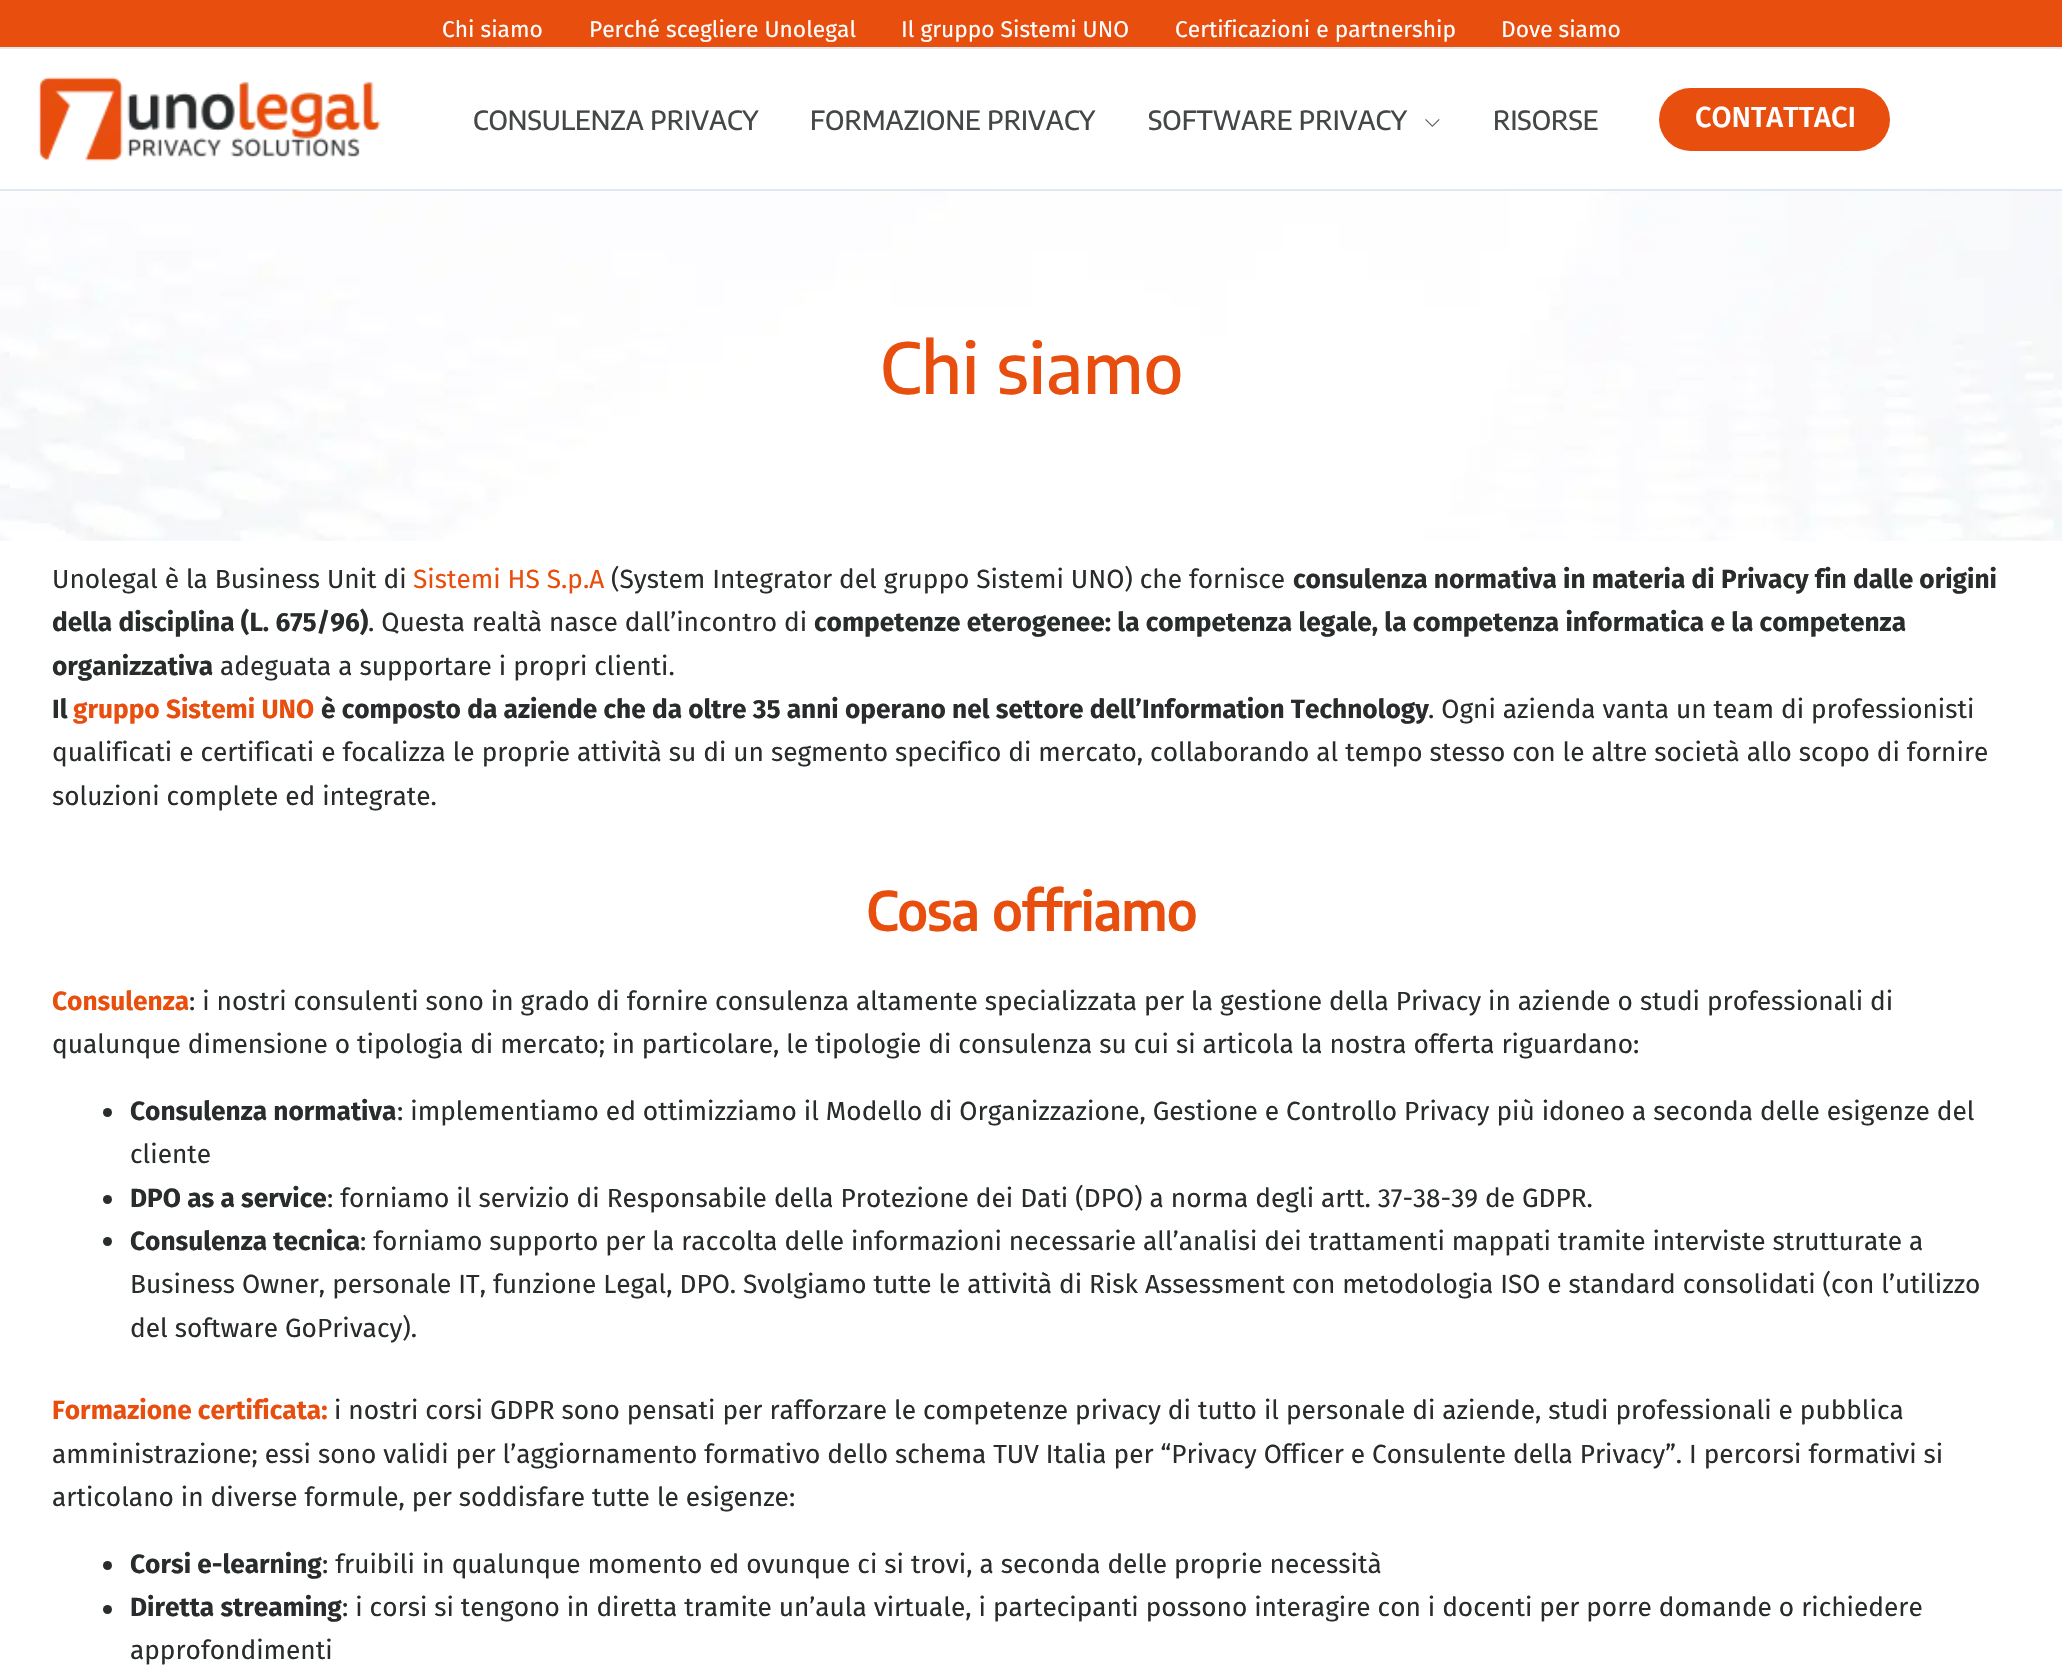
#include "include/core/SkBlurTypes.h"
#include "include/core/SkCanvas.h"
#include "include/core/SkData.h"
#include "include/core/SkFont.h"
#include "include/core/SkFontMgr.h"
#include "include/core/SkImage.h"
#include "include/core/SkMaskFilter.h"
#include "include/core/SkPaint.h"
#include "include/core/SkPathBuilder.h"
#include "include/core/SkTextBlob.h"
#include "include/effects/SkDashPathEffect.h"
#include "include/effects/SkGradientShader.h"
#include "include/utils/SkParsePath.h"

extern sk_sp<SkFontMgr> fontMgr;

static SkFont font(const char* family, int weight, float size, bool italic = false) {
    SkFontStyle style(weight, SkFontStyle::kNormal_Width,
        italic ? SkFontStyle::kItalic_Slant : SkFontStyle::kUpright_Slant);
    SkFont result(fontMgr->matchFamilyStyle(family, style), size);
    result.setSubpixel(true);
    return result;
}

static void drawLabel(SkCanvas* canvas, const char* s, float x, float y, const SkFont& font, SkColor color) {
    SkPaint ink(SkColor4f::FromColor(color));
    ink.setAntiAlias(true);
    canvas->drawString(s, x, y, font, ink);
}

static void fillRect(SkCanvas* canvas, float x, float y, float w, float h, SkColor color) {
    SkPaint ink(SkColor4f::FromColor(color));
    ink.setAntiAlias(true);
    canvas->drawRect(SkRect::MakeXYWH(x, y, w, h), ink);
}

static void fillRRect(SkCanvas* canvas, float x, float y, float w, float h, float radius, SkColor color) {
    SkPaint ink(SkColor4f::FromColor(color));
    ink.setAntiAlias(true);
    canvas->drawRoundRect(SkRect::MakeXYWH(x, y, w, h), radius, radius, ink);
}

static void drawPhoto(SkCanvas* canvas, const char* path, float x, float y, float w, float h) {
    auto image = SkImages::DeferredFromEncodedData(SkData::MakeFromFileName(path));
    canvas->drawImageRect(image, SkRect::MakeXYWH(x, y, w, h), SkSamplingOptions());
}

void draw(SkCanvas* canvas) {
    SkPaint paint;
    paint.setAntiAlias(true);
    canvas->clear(0xFFFFFFFF);
    fillRect(canvas, 0, 0, 2062, 47, 0xFFE84E0E);
    fillRect(canvas, 0, 47, 2062, 2, 0xFFE2E8F0);
    SkFont font1 = font("Fira Sans", 400, 22.75f);
    drawLabel(canvas, "Chi siamo", 442, 37, font1, 0xFFFFFFFF);
    drawLabel(canvas, "Perché scegliere Unolegal", 589, 37, font1, 0xFFFFFFFF);
    drawLabel(canvas, "Il gruppo Sistemi UNO", 901, 37, font1, 0xFFFFFFFF);
    drawLabel(canvas, "Certificazioni e partnership", 1175, 37, font1, 0xFFFFFFFF);
    drawLabel(canvas, "Dove siamo", 1501, 37, font1, 0xFFFFFFFF);
    fillRect(canvas, 0, 189, 2062, 2, 0xFFE2E8F0);
    drawPhoto(canvas, "assets/img1.png", 38, 76, 343, 86);
    SkFont font2 = font("Encode Sans Condensed", 100, 26.25f);
    drawLabel(canvas, "CONSULENZA PRIVACY", 473, 130, font2, 0xFF444748);
    drawLabel(canvas, "FORMAZIONE PRIVACY", 810, 130, font2, 0xFF444748);
    drawLabel(canvas, "SOFTWARE PRIVACY", 1148, 130, font2, 0xFF444748);
    drawPhoto(canvas, "assets/img2.png", 1425, 119, 15, 8);
    drawLabel(canvas, "RISORSE", 1493, 130, font2, 0xFF444748);
    fillRRect(canvas, 1659, 88, 231, 63, 31.5f, 0xFFE84E0E);
    SkFont font3 = font("Fira Sans", 500, 29);
    drawLabel(canvas, "CONTATTACI", 1695, 127, font3, 0xFFFFFFFF);
    drawPhoto(canvas, "assets/img3.png", 0, 191, 2062, 350);
    SkFont font4 = font("Encode Sans Condensed", 100, 70);
    drawLabel(canvas, "Chi siamo", 880, 394, font4, 0xFFE84E0E);
    SkFont font5 = font("Fira Sans", 400, 26.25f);
    drawLabel(canvas, "Unolegal è la Business Unit di", 52, 588, font5, 0xFF292C2C);
    drawLabel(canvas, "Sistemi HS S.p.A", 413, 588, font5, 0xFFE84E0E);
    drawLabel(canvas, "(System Integrator del gruppo Sistemi UNO) che fornisce", 611, 588, font5, 0xFF292C2C);
    SkFont font6 = font("Fira Sans", 700, 26.25f);
    drawLabel(canvas, "consulenza normativa in materia di Privacy fin dalle origini", 1293, 588, font6, 0xFF292C2C);
    drawLabel(canvas, "della disciplina (L. 675/96)", 52, 631, font6, 0xFF292C2C);
    drawLabel(canvas, ". Questa realtà nasce dall’incontro di", 368, 631, font5, 0xFF292C2C);
    drawLabel(canvas, "competenze eterogenee: la competenza legale, la competenza informatica e la competenza", 814, 631, font6, 0xFF292C2C);
    drawLabel(canvas, "organizzativa", 52, 675, font6, 0xFF292C2C);
    drawLabel(canvas, "adeguata a supportare i propri clienti.", 220, 675, font5, 0xFF292C2C);
    drawLabel(canvas, "Il", 52, 718, font6, 0xFF292C2C);
    drawLabel(canvas, "gruppo Sistemi UNO", 73, 718, font6, 0xFFE84E0E);
    drawLabel(canvas, "è composto da aziende che da oltre 35 anni operano nel settore dell’Information Technology", 321, 718, font6, 0xFF292C2C);
    drawLabel(canvas, ". Ogni azienda vanta un team di professionisti", 1428, 718, font5, 0xFF292C2C);
    drawLabel(canvas, "qualificati e certificati e focalizza le proprie attività su di un segmento specifico di mercato, collaborando al tempo stesso con le altre società allo scopo di fornire", 52, 761, font5, 0xFF292C2C);
    drawLabel(canvas, "soluzioni complete ed integrate.", 52, 805, font5, 0xFF292C2C);
    SkFont font7 = font("Encode Sans Condensed", 700, 52.5f);
    drawLabel(canvas, "Cosa offriamo", 866, 931, font7, 0xFFE84E0E);
    drawLabel(canvas, "Consulenza", 52, 1010, font6, 0xFFE84E0E);
    drawLabel(canvas, ": i nostri consulenti sono in grado di fornire consulenza altamente specializzata per la gestione della Privacy in aziende o studi professionali di", 189, 1010, font5, 0xFF292C2C);
    drawLabel(canvas, "qualunque dimensione o tipologia di mercato; in particolare, le tipologie di consulenza su cui si articola la nostra offerta riguardano:", 52, 1053, font5, 0xFF292C2C);
    paint.setColor(0xFF292C2C);
    canvas->drawCircle(107.5f, 1112.5f, 4.5f, paint);
    drawLabel(canvas, "Consulenza normativa", 130, 1120, font6, 0xFF292C2C);
    drawLabel(canvas, ": implementiamo ed ottimizziamo il Modello di Organizzazione, Gestione e Controllo Privacy più idoneo a seconda delle esigenze del", 397, 1120, font5, 0xFF292C2C);
    drawLabel(canvas, "cliente", 130, 1163, font5, 0xFF292C2C);
    canvas->drawCircle(107.5f, 1199.5f, 4.5f, paint);
    drawLabel(canvas, "DPO as a service", 130, 1207, font6, 0xFF292C2C);
    drawLabel(canvas, ": forniamo il servizio di Responsabile della Protezione dei Dati (DPO) a norma degli artt. 37-38-39 de GDPR.", 327, 1207, font5, 0xFF292C2C);
    canvas->drawCircle(107.5f, 1241.5f, 4.5f, paint);
    drawLabel(canvas, "Consulenza tecnica", 130, 1250, font6, 0xFF292C2C);
    drawLabel(canvas, ": forniamo supporto per la raccolta delle informazioni necessarie all’analisi dei trattamenti mappati tramite interviste strutturate a", 360, 1250, font5, 0xFF292C2C);
    drawLabel(canvas, "Business Owner, personale IT, funzione Legal, DPO. Svolgiamo tutte le attività di Risk Assessment con metodologia ISO e standard consolidati (con l’utilizzo", 130, 1293, font5, 0xFF292C2C);
    drawLabel(canvas, "del software GoPrivacy).", 130, 1337, font5, 0xFF292C2C);
    drawLabel(canvas, "Formazione certificata:", 52, 1419, font6, 0xFFE84E0E);
    drawLabel(canvas, "i nostri corsi GDPR sono pensati per rafforzare le competenze privacy di tutto il personale di aziende, studi professionali e pubblica", 334, 1419, font5, 0xFF292C2C);
    drawLabel(canvas, "amministrazione; essi sono validi per l’aggiornamento formativo dello schema TUV Italia per “Privacy Officer e Consulente della Privacy”. I percorsi formativi si", 52, 1463, font5, 0xFF292C2C);
    drawLabel(canvas, "articolano in diverse formule, per soddisfare tutte le esigenze:", 52, 1506, font5, 0xFF292C2C);
    canvas->drawCircle(107.5f, 1565.5f, 4.5f, paint);
    drawLabel(canvas, "Corsi e-learning", 130, 1573, font6, 0xFF292C2C);
    drawLabel(canvas, ": fruibili in qualunque momento ed ovunque ci si trovi, a seconda delle proprie necessità", 322, 1573, font5, 0xFF292C2C);
    canvas->drawCircle(107.5f, 1609.5f, 4.5f, paint);
    drawLabel(canvas, "Diretta streaming", 130, 1616, font6, 0xFF292C2C);
    drawLabel(canvas, ": i corsi si tengono in diretta tramite un’aula virtuale, i partecipanti possono interagire con i docenti per porre domande o richiedere", 342, 1616, font5, 0xFF292C2C);
    drawLabel(canvas, "approfondimenti", 130, 1659, font5, 0xFF292C2C);
}
